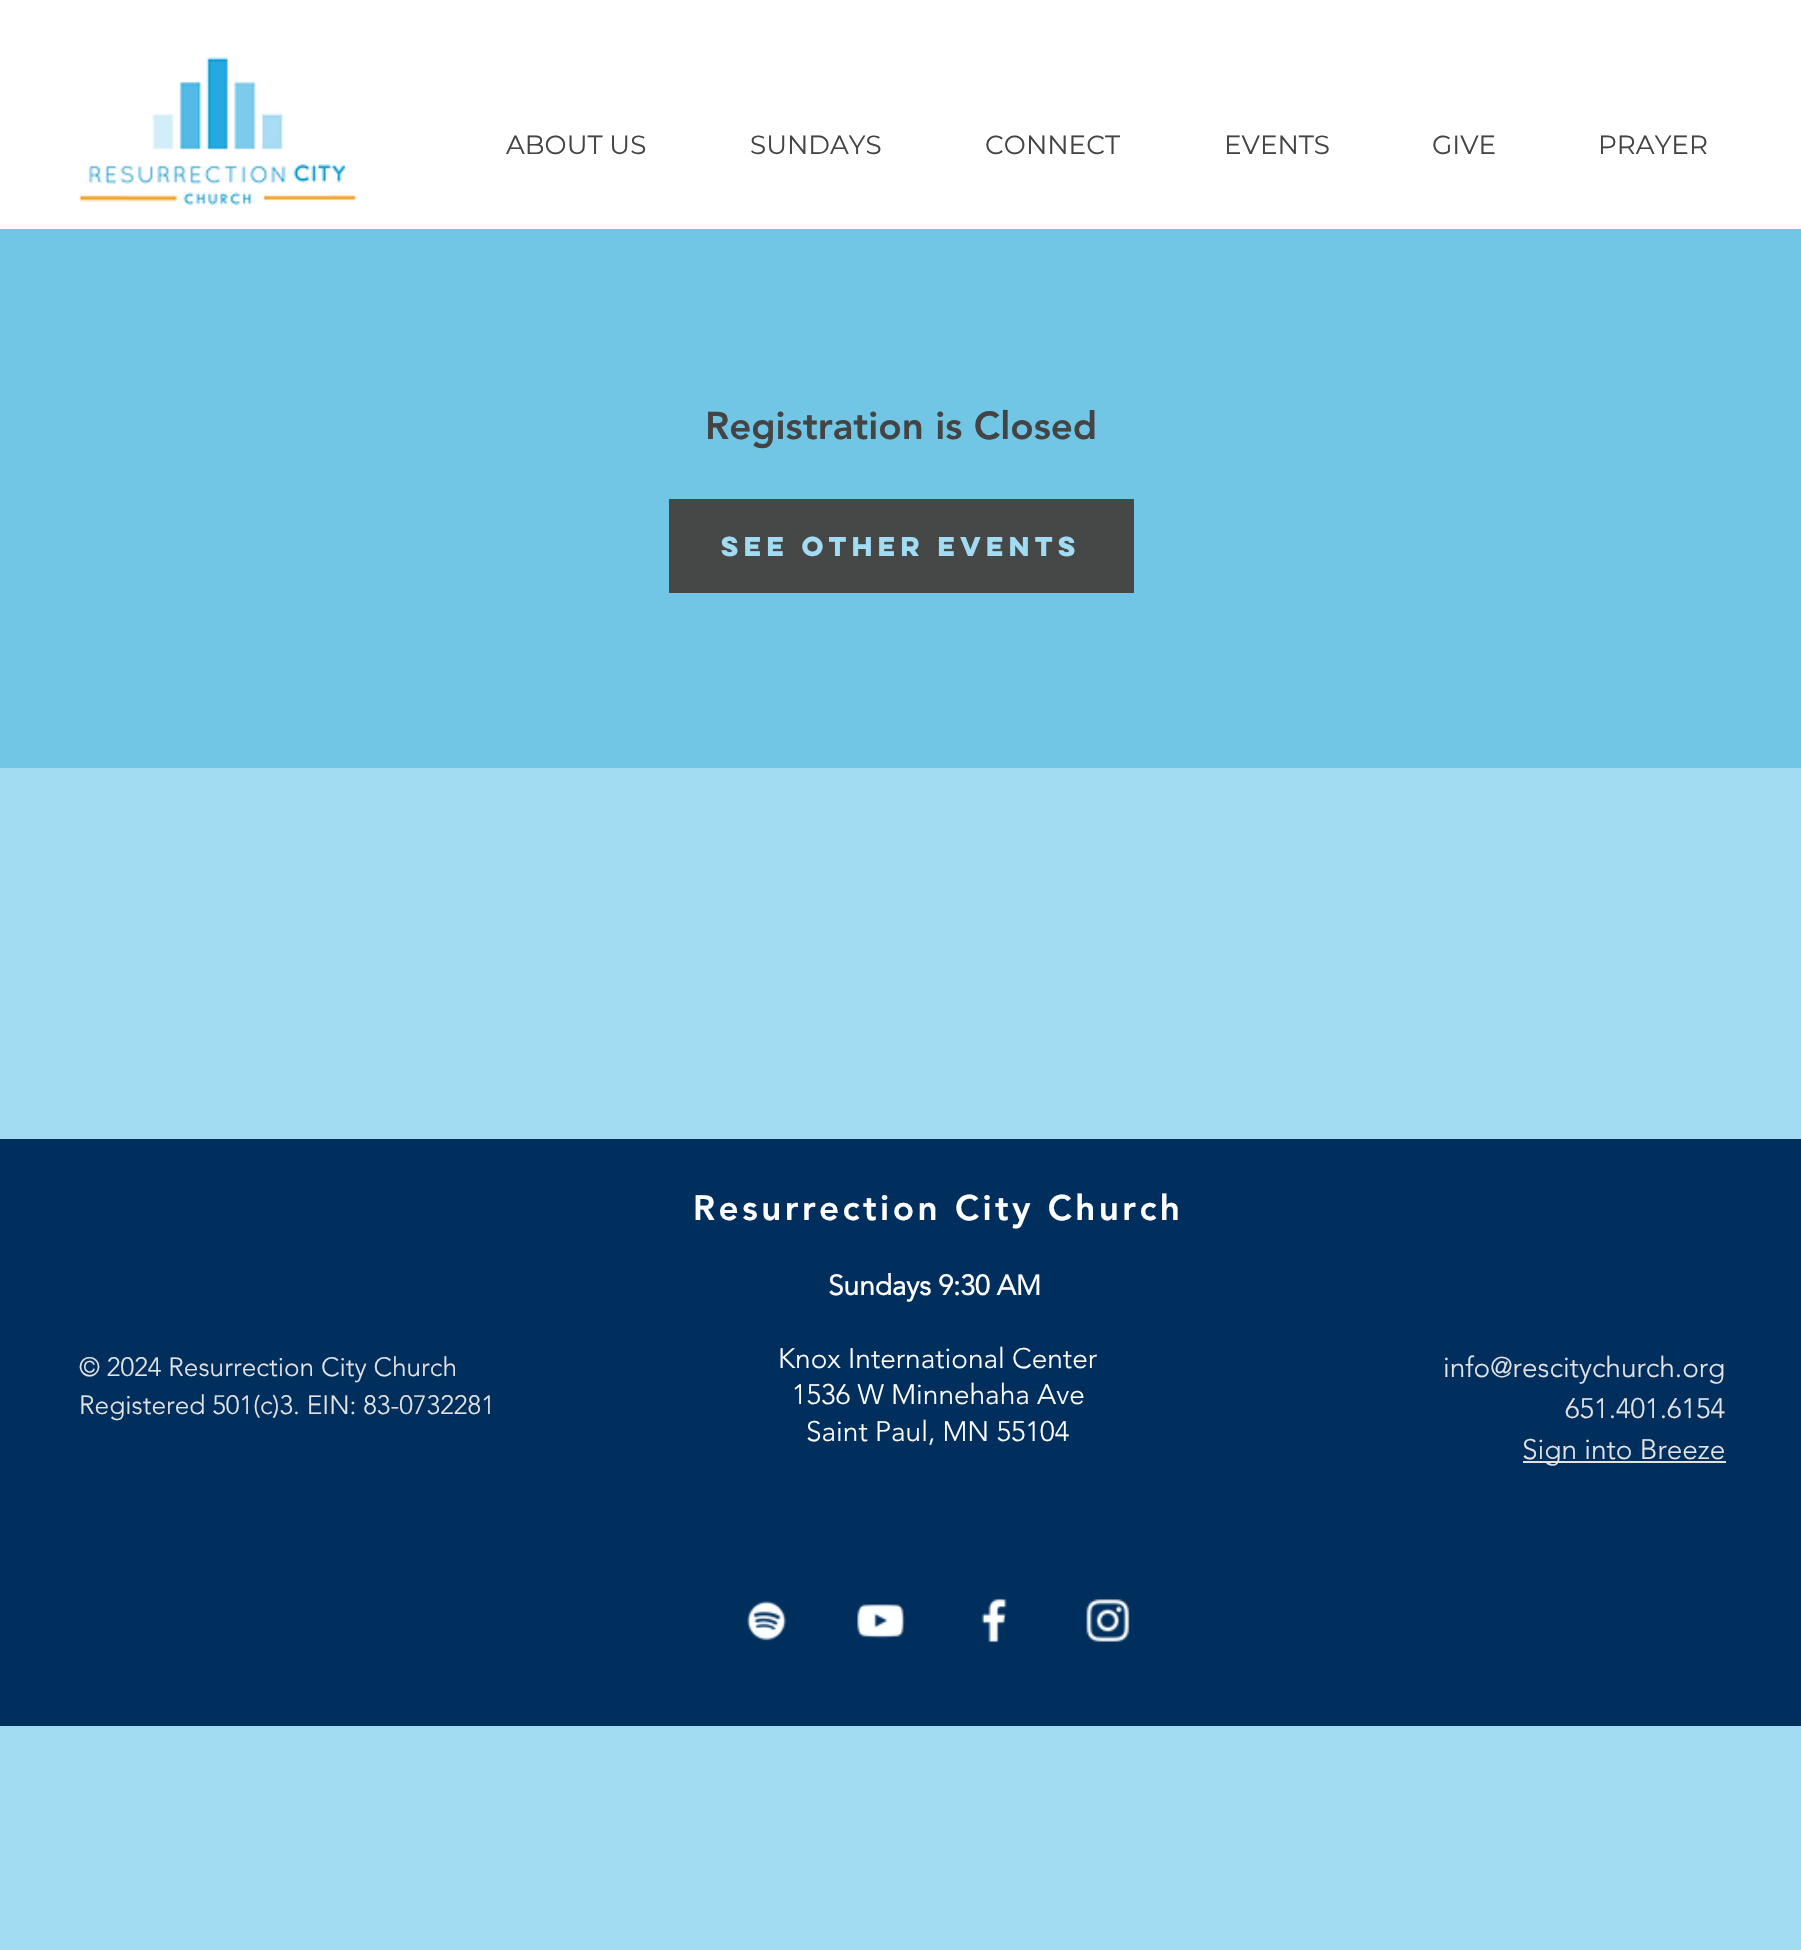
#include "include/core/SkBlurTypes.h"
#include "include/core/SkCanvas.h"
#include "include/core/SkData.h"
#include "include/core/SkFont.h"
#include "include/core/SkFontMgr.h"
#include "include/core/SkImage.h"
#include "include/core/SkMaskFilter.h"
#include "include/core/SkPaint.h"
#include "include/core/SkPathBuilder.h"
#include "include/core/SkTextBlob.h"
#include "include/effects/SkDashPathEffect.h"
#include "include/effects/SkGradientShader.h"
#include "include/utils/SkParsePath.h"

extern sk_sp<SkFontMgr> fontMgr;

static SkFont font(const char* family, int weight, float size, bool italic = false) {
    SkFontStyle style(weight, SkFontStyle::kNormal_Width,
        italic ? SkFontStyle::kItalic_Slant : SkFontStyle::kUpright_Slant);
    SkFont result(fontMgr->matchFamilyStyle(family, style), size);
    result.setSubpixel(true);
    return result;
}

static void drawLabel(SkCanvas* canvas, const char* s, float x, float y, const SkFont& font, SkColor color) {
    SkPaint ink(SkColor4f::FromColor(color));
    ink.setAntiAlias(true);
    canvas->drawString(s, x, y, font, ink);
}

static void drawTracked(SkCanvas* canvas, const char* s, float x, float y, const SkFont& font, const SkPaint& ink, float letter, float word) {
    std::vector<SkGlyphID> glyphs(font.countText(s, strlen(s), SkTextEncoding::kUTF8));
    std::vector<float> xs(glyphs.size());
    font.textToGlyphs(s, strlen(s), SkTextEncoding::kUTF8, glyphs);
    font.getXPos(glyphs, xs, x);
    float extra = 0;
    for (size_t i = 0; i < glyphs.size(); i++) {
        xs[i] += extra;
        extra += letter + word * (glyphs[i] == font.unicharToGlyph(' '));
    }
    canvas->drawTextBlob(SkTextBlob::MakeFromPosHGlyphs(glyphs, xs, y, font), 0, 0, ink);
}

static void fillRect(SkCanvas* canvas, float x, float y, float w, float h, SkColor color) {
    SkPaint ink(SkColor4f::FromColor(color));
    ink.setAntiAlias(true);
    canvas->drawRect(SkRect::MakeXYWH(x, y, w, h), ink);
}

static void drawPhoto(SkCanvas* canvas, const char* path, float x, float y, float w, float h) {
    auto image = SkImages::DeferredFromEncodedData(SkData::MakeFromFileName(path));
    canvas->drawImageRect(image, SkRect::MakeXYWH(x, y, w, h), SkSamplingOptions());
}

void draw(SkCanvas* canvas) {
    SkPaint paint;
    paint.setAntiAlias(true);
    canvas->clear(0xFFA1DCF2);
    fillRect(canvas, 0, 0, 1801, 229, 0xFFFFFFFF);
    drawPhoto(canvas, "assets/img1.png", 78, 57, 278, 149);
    SkFont font1 = font("Montserrat", 400, 26.25f);
    drawLabel(canvas, "ABOUT US", 506, 154, font1, 0xFF444444);
    drawLabel(canvas, "SUNDAYS", 750, 154, font1, 0xFF444444);
    drawLabel(canvas, "CONNECT", 985, 154, font1, 0xFF444444);
    drawLabel(canvas, "EVENTS", 1224, 154, font1, 0xFF444444);
    drawLabel(canvas, "GIVE", 1432, 154, font1, 0xFF444444);
    drawLabel(canvas, "PRAYER", 1598, 154, font1, 0xFF444444);
    fillRect(canvas, 0, 229, 1801, 539, 0xFF72C6E5);
    SkFont font2 = font("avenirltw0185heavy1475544", 900, 38.5f);
    drawLabel(canvas, "Registration is Closed", 705, 439, font2, 0xFF444444);
    fillRect(canvas, 669, 499, 465, 94, 0xFF464747);
    SkFont font3 = font("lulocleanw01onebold", 700, 24.5f);
    drawLabel(canvas, "See other events", 721, 556, font3, 0xFFA1DCF2);
    fillRect(canvas, 0, 1139, 1801, 587, 0xFF002E5D);
    SkFont font4 = font("avenirltw0185heavy1475544", 900, 35);
    paint.setColor(0xFFFFFFFF);
    drawTracked(canvas, "Resurrection City Church", 693, 1220, font4, paint, 3.5f, 0);
    SkFont font5 = font("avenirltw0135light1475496", 300, 26.25f);
    drawLabel(canvas, "© 2024 Resurrection City Church", 79, 1376, font5, 0xFFE3E3E3);
    drawLabel(canvas, "Registered 501(c)3. EIN: 83-0732281", 79, 1414, font5, 0xFFE3E3E3);
    SkFont font6 = font("avenirltw0135light1475496", 700, 28);
    drawLabel(canvas, "Sundays 9:30 AM", 828, 1295, font6, 0xFFFFFFFF);
    SkFont font7 = font("avenirltw0135light1475496", 300, 28);
    drawLabel(canvas, "Knox International Center", 778, 1368, font7, 0xFFFFFFFF);
    drawLabel(canvas, "1536 W Minnehaha Ave", 792, 1404, font7, 0xFFFFFFFF);
    drawLabel(canvas, "Saint Paul, MN 55104", 806, 1441, font7, 0xFFFFFFFF);
    drawLabel(canvas, "info@rescitychurch.org", 1443, 1377, font7, 0xFFE3E3E3);
    drawLabel(canvas, "651.401.6154", 1565, 1418, font7, 0xFFE3E3E3);
    fillRect(canvas, 1523, 1461, 203, 2, 0xFFE3E3E3);
    drawLabel(canvas, "Sign into Breeze", 1522, 1459, font7, 0xFFE3E3E3);
    drawPhoto(canvas, "assets/img2.png", 747, 1601, 40, 40);
    drawPhoto(canvas, "assets/img3.png", 857, 1604, 48, 35);
    drawPhoto(canvas, "assets/img4.png", 981, 1598, 26, 45);
    drawPhoto(canvas, "assets/img5.png", 1086, 1599, 44, 43);
}
